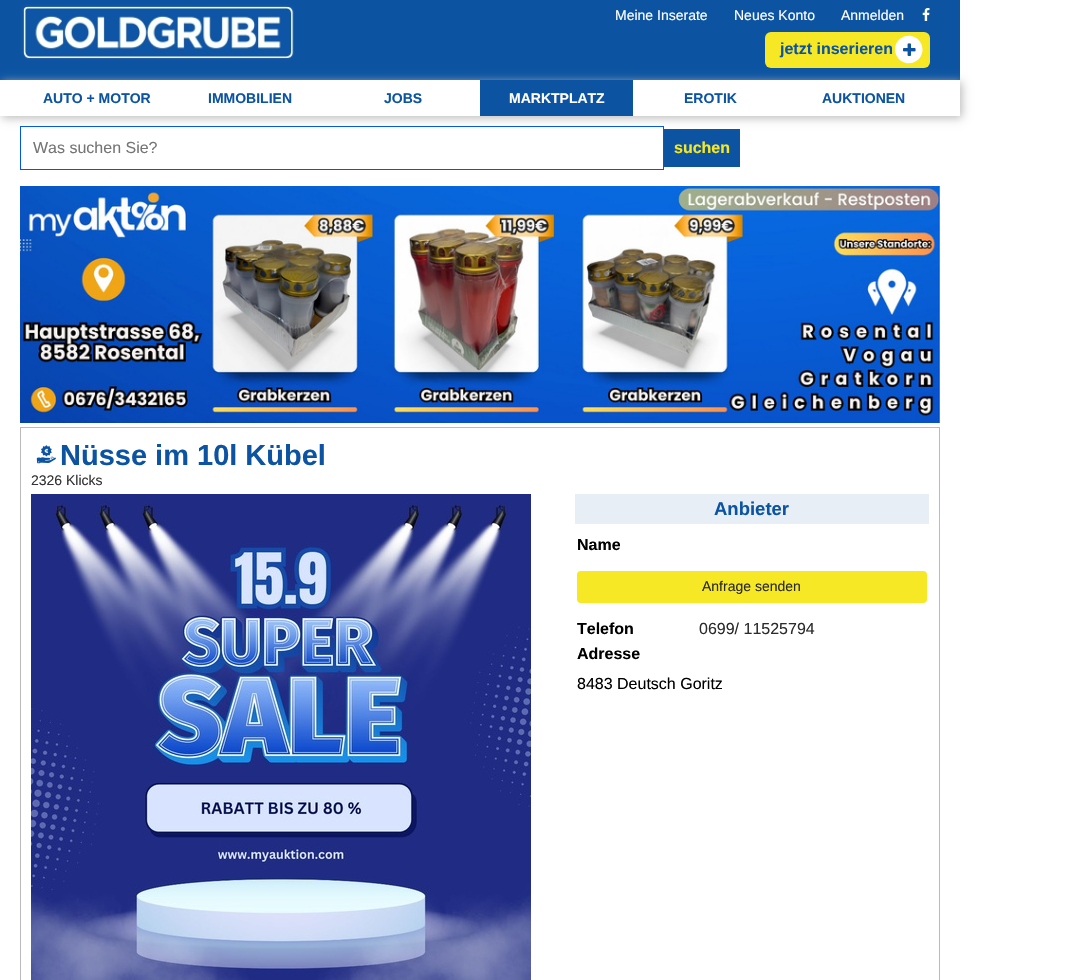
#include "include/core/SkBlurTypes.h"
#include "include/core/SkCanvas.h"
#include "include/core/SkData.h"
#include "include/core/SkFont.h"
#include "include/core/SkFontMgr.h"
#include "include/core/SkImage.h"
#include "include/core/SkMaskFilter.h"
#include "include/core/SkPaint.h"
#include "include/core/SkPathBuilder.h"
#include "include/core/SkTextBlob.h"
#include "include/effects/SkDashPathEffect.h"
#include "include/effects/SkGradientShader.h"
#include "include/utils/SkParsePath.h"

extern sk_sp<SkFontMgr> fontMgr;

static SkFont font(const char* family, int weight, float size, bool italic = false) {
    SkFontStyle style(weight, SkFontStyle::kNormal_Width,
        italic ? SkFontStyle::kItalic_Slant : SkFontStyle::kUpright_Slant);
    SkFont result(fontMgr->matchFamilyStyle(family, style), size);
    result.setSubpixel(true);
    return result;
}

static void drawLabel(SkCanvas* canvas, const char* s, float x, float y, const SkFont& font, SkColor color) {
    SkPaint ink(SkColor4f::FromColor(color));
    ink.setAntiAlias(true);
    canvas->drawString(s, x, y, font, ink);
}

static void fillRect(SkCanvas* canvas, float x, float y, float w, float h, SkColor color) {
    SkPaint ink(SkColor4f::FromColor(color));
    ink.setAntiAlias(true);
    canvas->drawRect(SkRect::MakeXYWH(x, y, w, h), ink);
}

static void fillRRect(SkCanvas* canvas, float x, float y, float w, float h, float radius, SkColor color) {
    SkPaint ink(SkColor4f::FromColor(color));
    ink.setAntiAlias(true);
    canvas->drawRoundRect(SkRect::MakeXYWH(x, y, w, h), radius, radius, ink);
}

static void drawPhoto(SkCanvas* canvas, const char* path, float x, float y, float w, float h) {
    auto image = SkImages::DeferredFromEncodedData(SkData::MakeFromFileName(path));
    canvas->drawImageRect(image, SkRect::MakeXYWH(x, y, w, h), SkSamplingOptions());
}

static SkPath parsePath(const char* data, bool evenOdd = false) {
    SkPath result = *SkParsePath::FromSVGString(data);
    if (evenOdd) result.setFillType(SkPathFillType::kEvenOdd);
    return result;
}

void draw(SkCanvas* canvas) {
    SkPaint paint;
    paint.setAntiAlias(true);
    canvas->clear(0xFFFFFFFF);
    fillRect(canvas, 0, 0, 960, 80, 0xFF0C54A2);
    drawPhoto(canvas, "assets/img1.png", 21, 4, 273, 57);
    SkFont font1 = font("Liberation Sans", 400, 14);
    drawLabel(canvas, "Meine Inserate", 615, 20, font1, 0xFFFFFFFF);
    drawLabel(canvas, "Neues Konto", 734, 20, font1, 0xFFFFFFFF);
    drawLabel(canvas, "Anmelden", 841, 20, font1, 0xFFFFFFFF);
    drawPhoto(canvas, "assets/img2.png", 922, 8, 8, 13);
    fillRRect(canvas, 765, 32, 165, 36, 6, 0xFFF6E825);
    SkFont font2 = font("Liberation Sans", 700, 16);
    drawLabel(canvas, "jetzt inserieren", 780, 54, font2, 0xFF0C54A2);
    paint.setColor(0xFFFFFFFF);
    canvas->drawPath(parsePath("M920.5 42.5C922 45 922.5 48 922.5 50.5C921.5 64 903.5 68 897 56.5C895.5 54 895 51.5 895 48.5C896 35 914 31 920.5 42.5Z"), paint);
    drawPhoto(canvas, "assets/img3.png", 903, 43, 13, 13);
    paint.setStroke(true);
    paint.setStrokeWidth(1);
    paint.setColor(0xFF0055EE);
    canvas->drawRect(SkRect::MakeXYWH(20.5f, 126.5f, 643, 43), paint);
    fillRect(canvas, 664, 129, 76, 38, 0xFF0C54A2);
    canvas->save();
    canvas->clipPath(parsePath("M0 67H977V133H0ZM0 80H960V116H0Z", true), true);
    paint.setStroke(false);
    paint.setColor(0xFFBBBBBB);
    paint.setMaskFilter(SkMaskFilter::MakeBlur(kNormal_SkBlurStyle, 4.5f));
    canvas->drawRect(SkRect::MakeXYWH(2, 82, 960, 36), paint);
    paint.setMaskFilter(nullptr);
    canvas->restore();
    SkFont font3 = font("Liberation Sans", 700, 14);
    drawLabel(canvas, "AUTO + MOTOR", 43, 103, font3, 0xFF0C54A2);
    drawLabel(canvas, "IMMOBILIEN", 208, 103, font3, 0xFF0C54A2);
    drawLabel(canvas, "JOBS", 384, 103, font3, 0xFF0C54A2);
    fillRect(canvas, 480, 80, 153, 36, 0xFF0C54A2);
    drawLabel(canvas, "MARKTPLATZ", 509, 103, font3, 0xFFFFFFFF);
    drawLabel(canvas, "EROTIK", 684, 103, font3, 0xFF0C54A2);
    drawLabel(canvas, "AUKTIONEN", 822, 103, font3, 0xFF0C54A2);
    SkFont font4 = font("Liberation Sans", 400, 16);
    drawLabel(canvas, "Was suchen Sie?", 33, 153, font4, 0xFF757575);
    drawLabel(canvas, "suchen", 674, 153, font2, 0xFFF6E825);
    drawPhoto(canvas, "assets/img4.png", 20, 186, 920, 237);
    paint.setStroke(true);
    canvas->drawRect(SkRect::MakeXYWH(20.5f, 427.5f, 919, 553), paint);
    drawPhoto(canvas, "assets/img5.png", 36, 445, 20, 19);
    SkFont font5 = font("Liberation Sans", 700, 29);
    drawLabel(canvas, "Nüsse im 10l Kübel", 60, 465, font5, 0xFF0C54A2);
    drawLabel(canvas, "2326 Klicks", 31, 485, font1, 0xFF333333);
    drawPhoto(canvas, "assets/img6.png", 31, 494, 500, 486);
    fillRect(canvas, 575, 494, 354, 30, 0xFFE7EEF6);
    SkFont font6 = font("Liberation Sans", 700, 18.5f);
    drawLabel(canvas, "Anbieter", 714, 515, font6, 0xFF0C54A2);
    drawLabel(canvas, "Name", 577, 550, font2, 0xFF000000);
    fillRRect(canvas, 577, 571, 350, 32, 4, 0xFFF6E825);
    drawLabel(canvas, "Anfrage senden", 702, 591, font1, 0xFF2B2B2B);
    drawLabel(canvas, "Telefon", 577, 634, font2, 0xFF000000);
    drawLabel(canvas, "0699/ 11525794", 699, 634, font4, 0xFF2B2B2B);
    drawLabel(canvas, "Adresse", 577, 659, font2, 0xFF000000);
    drawLabel(canvas, "8483 Deutsch Goritz", 577, 689, font4, 0xFF000000);
}
